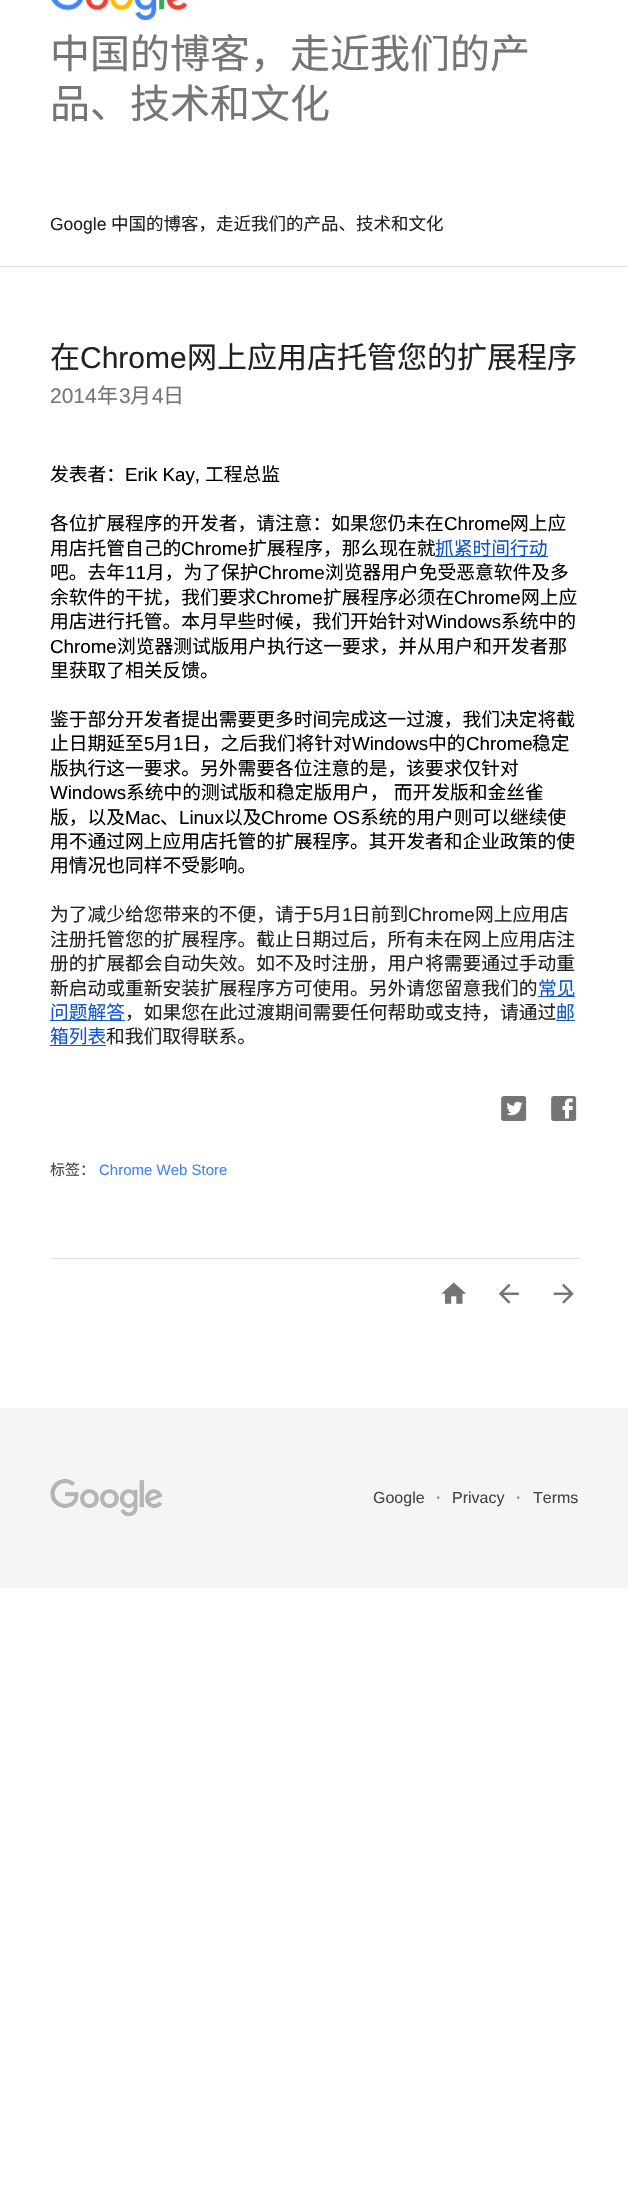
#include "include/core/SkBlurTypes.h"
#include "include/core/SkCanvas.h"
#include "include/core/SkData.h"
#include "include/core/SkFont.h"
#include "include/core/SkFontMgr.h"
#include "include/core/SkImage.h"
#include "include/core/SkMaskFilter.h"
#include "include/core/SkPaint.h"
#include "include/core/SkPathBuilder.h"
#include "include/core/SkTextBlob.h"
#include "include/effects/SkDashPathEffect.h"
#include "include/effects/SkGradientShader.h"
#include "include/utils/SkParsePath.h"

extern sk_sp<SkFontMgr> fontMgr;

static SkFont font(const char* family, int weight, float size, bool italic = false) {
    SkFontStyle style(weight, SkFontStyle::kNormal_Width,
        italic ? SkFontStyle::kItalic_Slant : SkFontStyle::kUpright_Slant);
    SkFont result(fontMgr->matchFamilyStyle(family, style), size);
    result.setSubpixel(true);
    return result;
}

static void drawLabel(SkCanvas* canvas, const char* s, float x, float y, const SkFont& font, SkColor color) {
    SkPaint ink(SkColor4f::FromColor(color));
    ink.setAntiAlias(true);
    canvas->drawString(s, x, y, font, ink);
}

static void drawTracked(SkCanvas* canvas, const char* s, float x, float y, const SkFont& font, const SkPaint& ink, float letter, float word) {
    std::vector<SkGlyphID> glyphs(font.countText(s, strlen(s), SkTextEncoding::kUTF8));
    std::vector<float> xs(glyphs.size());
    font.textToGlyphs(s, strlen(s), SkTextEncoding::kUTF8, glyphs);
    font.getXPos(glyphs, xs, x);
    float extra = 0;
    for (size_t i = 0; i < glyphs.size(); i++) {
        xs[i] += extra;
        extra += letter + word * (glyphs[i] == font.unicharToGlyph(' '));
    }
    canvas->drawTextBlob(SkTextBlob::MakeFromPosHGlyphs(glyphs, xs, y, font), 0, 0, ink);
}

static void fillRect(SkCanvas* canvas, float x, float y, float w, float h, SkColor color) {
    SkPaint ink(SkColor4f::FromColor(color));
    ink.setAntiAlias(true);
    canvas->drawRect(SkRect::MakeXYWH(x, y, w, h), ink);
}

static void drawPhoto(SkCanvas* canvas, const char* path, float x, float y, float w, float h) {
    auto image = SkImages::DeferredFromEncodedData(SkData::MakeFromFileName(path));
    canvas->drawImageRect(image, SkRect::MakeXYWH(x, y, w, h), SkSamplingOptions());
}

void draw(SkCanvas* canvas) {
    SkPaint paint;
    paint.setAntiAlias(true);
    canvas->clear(0xFFFFFFFF);
    fillRect(canvas, 0, 266, 628, 1, 0xFFE0E0E0);
    drawPhoto(canvas, "assets/img1.png", 51, 0, 137, 21);
    SkFont font1 = font("Noto Sans CJK SC", 400, 40);
    drawLabel(canvas, "中国的博客，走近我们的产", 50, 68, font1, 0xFF757575);
    drawLabel(canvas, "品、技术和文化", 50, 118, font1, 0xFF757575);
    SkFont font2 = font("Liberation Sans", 400, 17.5f);
    drawLabel(canvas, "Google", 50, 230, font2, 0xFF212121);
    SkFont font3 = font("Noto Sans CJK SC", 400, 17.5f);
    drawLabel(canvas, "中国的博客，走近我们的产品、技术和文化", 111, 230, font3, 0xFF212121);
    SkFont font4 = font("Noto Sans CJK SC", 400, 30);
    drawLabel(canvas, "在", 50, 368, font4, 0xFF212121);
    SkFont font5 = font("Liberation Sans", 400, 30);
    drawLabel(canvas, "Chrome", 80, 368, font5, 0xFF212121);
    drawLabel(canvas, "网上应用店托管您的扩展程序", 187, 368, font4, 0xFF212121);
    SkFont font6 = font("Liberation Sans", 400, 21);
    drawLabel(canvas, "2014", 50, 403, font6, 0xFF757575);
    SkFont font7 = font("Noto Sans CJK SC", 400, 21);
    drawLabel(canvas, "年", 97, 403, font7, 0xFF757575);
    drawLabel(canvas, "3", 119, 403, font6, 0xFF757575);
    drawLabel(canvas, "月", 130, 403, font7, 0xFF757575);
    drawLabel(canvas, "4", 152, 403, font6, 0xFF757575);
    drawLabel(canvas, "日", 163, 403, font7, 0xFF757575);
    SkFont font8 = font("Noto Sans CJK SC", 400, 18.75f);
    drawLabel(canvas, "发表者：", 50, 481, font8, 0xFF000000);
    SkFont font9 = font("Liberation Sans", 400, 18.75f);
    drawLabel(canvas, "Erik Kay,", 125, 481, font9, 0xFF000000);
    drawLabel(canvas, "工程总监", 205, 481, font8, 0xFF000000);
    drawLabel(canvas, "各位扩展程序的开发者，请注意：如果您仍未在", 50, 530, font8, 0xFF000000);
    drawLabel(canvas, "Chrome", 444, 530, font9, 0xFF000000);
    drawLabel(canvas, "网上应", 510, 530, font8, 0xFF000000);
    drawLabel(canvas, "用店托管自己的", 50, 555, font8, 0xFF000000);
    drawLabel(canvas, "Chrome", 181, 555, font9, 0xFF000000);
    drawLabel(canvas, "扩展程序，那么现在就", 248, 555, font8, 0xFF000000);
    fillRect(canvas, 435, 556, 113, 1, 0xFF1155CC);
    drawLabel(canvas, "抓紧时间行动", 435, 555, font8, 0xFF1155CC);
    drawLabel(canvas, "吧。去年", 50, 579, font8, 0xFF000000);
    drawLabel(canvas, "11", 125, 579, font9, 0xFF000000);
    drawLabel(canvas, "月，为了保护", 146, 579, font8, 0xFF000000);
    drawLabel(canvas, "Chrome", 258, 579, font9, 0xFF000000);
    drawLabel(canvas, "浏览器用户免受恶意软件及多", 325, 579, font8, 0xFF000000);
    drawLabel(canvas, "余软件的干扰，我们要求", 50, 604, font8, 0xFF000000);
    drawLabel(canvas, "Chrome", 256, 604, font9, 0xFF000000);
    drawLabel(canvas, "扩展程序必须在", 323, 604, font8, 0xFF000000);
    drawLabel(canvas, "Chrome", 454, 604, font9, 0xFF000000);
    drawLabel(canvas, "网上应", 521, 604, font8, 0xFF000000);
    drawLabel(canvas, "用店进行托管。本月早些时候，我们开始针对", 50, 628, font8, 0xFF000000);
    drawLabel(canvas, "Windows", 425, 628, font9, 0xFF000000);
    drawLabel(canvas, "系统中的", 501, 628, font8, 0xFF000000);
    drawLabel(canvas, "Chrome", 50, 653, font9, 0xFF000000);
    drawLabel(canvas, "浏览器测试版用户执行这一要求，并从用户和开发者那", 117, 653, font8, 0xFF000000);
    drawLabel(canvas, "里获取了相关反馈。", 50, 677, font8, 0xFF000000);
    drawLabel(canvas, "鉴于部分开发者提出需要更多时间完成这一过渡，我们决定将截", 50, 726, font8, 0xFF000000);
    drawLabel(canvas, "止日期延至", 50, 750, font8, 0xFF000000);
    drawLabel(canvas, "5", 144, 750, font9, 0xFF000000);
    drawLabel(canvas, "月", 154, 750, font8, 0xFF000000);
    drawLabel(canvas, "1", 173, 750, font9, 0xFF000000);
    drawLabel(canvas, "日，之后我们将针对", 183, 750, font8, 0xFF000000);
    drawLabel(canvas, "Windows", 352, 750, font9, 0xFF000000);
    drawLabel(canvas, "中的", 428, 750, font8, 0xFF000000);
    drawLabel(canvas, "Chrome", 466, 750, font9, 0xFF000000);
    drawLabel(canvas, "稳定", 532, 750, font8, 0xFF000000);
    drawLabel(canvas, "版执行这一要求。另外需要各位注意的是，该要求仅针对", 50, 775, font8, 0xFF000000);
    drawLabel(canvas, "Windows", 50, 799, font9, 0xFF000000);
    paint.setColor(0xFF000000);
    drawTracked(canvas, "系统中的测试版和稳定版用户， 而开发版和金丝雀", 126, 799, font8, paint, 0, 1);
    drawLabel(canvas, "版，以及", 50, 824, font8, 0xFF000000);
    drawLabel(canvas, "Mac", 125, 824, font9, 0xFF000000);
    drawLabel(canvas, "、", 160, 824, font8, 0xFF000000);
    drawLabel(canvas, "Linux", 179, 824, font9, 0xFF000000);
    drawLabel(canvas, "以及", 224, 824, font8, 0xFF000000);
    drawLabel(canvas, "Chrome OS", 261, 824, font9, 0xFF000000);
    drawLabel(canvas, "系统的用户则可以继续使", 360, 824, font8, 0xFF000000);
    drawLabel(canvas, "用不通过网上应用店托管的扩展程序。其开发者和企业政策的使", 50, 848, font8, 0xFF000000);
    drawLabel(canvas, "用情况也同样不受影响。", 50, 872, font8, 0xFF000000);
    drawLabel(canvas, "为了减少给您带来的不便，请于", 50, 921, font8, 0xFF212121);
    drawLabel(canvas, "5", 313, 921, font9, 0xFF212121);
    drawLabel(canvas, "月", 323, 921, font8, 0xFF212121);
    drawLabel(canvas, "1", 342, 921, font9, 0xFF212121);
    drawLabel(canvas, "日前到", 352, 921, font8, 0xFF212121);
    drawLabel(canvas, "Chrome", 408, 921, font9, 0xFF212121);
    drawLabel(canvas, "网上应用店", 475, 921, font8, 0xFF212121);
    drawLabel(canvas, "注册托管您的扩展程序。截止日期过后，所有未在网上应用店注", 50, 946, font8, 0xFF212121);
    drawLabel(canvas, "册的扩展都会自动失效。如不及时注册，用户将需要通过手动重", 50, 970, font8, 0xFF212121);
    drawLabel(canvas, "新启动或重新安装扩展程序方可使用。另外请您留意我们的", 50, 995, font8, 0xFF212121);
    fillRect(canvas, 538, 996, 37, 1, 0xFF1155CC);
    drawLabel(canvas, "常见", 538, 995, font8, 0xFF1155CC);
    fillRect(canvas, 50, 1020, 75, 1, 0xFF1155CC);
    drawLabel(canvas, "问题解答", 50, 1019, font8, 0xFF1155CC);
    drawLabel(canvas, "，如果您在此过渡期间需要任何帮助或支持，请通过", 125, 1019, font8, 0xFF212121);
    fillRect(canvas, 556, 1020, 19, 1, 0xFF1155CC);
    drawLabel(canvas, "邮", 556, 1019, font8, 0xFF1155CC);
    drawLabel(canvas, "箱列表", 50, 1043, font8, 0xFF1155CC);
    fillRect(canvas, 50, 1045, 56, 1, 0xFF1155CC);
    drawLabel(canvas, "和我们取得联系。", 106, 1043, font8, 0xFF212121);
    drawPhoto(canvas, "assets/img2.png", 501, 1096, 26, 25);
    drawPhoto(canvas, "assets/img3.png", 551, 1096, 26, 25);
    SkFont font10 = font("Noto Sans CJK SC", 400, 15);
    drawLabel(canvas, "标签：", 50, 1175, font10, 0xFF444444);
    SkFont font11 = font("Liberation Sans", 400, 15);
    drawLabel(canvas, "Chrome Web Store", 99, 1175, font11, 0xFF4184F3);
    fillRect(canvas, 50, 1258, 529, 1, 0xFFE0E0E0);
    drawPhoto(canvas, "assets/img4.png", 441, 1282, 25, 22);
    drawPhoto(canvas, "assets/img5.png", 498, 1283, 21, 21);
    drawPhoto(canvas, "assets/img6.png", 553, 1283, 21, 21);
    fillRect(canvas, 0, 1408, 628, 180, 0xFFF5F5F5);
    drawPhoto(canvas, "assets/img7.png", 50, 1478, 113, 39);
    SkFont font12 = font("Liberation Sans", 400, 16);
    drawLabel(canvas, "Google", 373, 1503, font12, 0xFF444444);
    SkFont font13 = font("Liberation Sans", 700, 16);
    drawLabel(canvas, "·", 436, 1503, font13, 0xFF999999);
    drawLabel(canvas, "Privacy", 452, 1503, font12, 0xFF444444);
    drawLabel(canvas, "·", 516, 1503, font13, 0xFF999999);
    drawLabel(canvas, "Terms", 533, 1503, font12, 0xFF444444);
}
